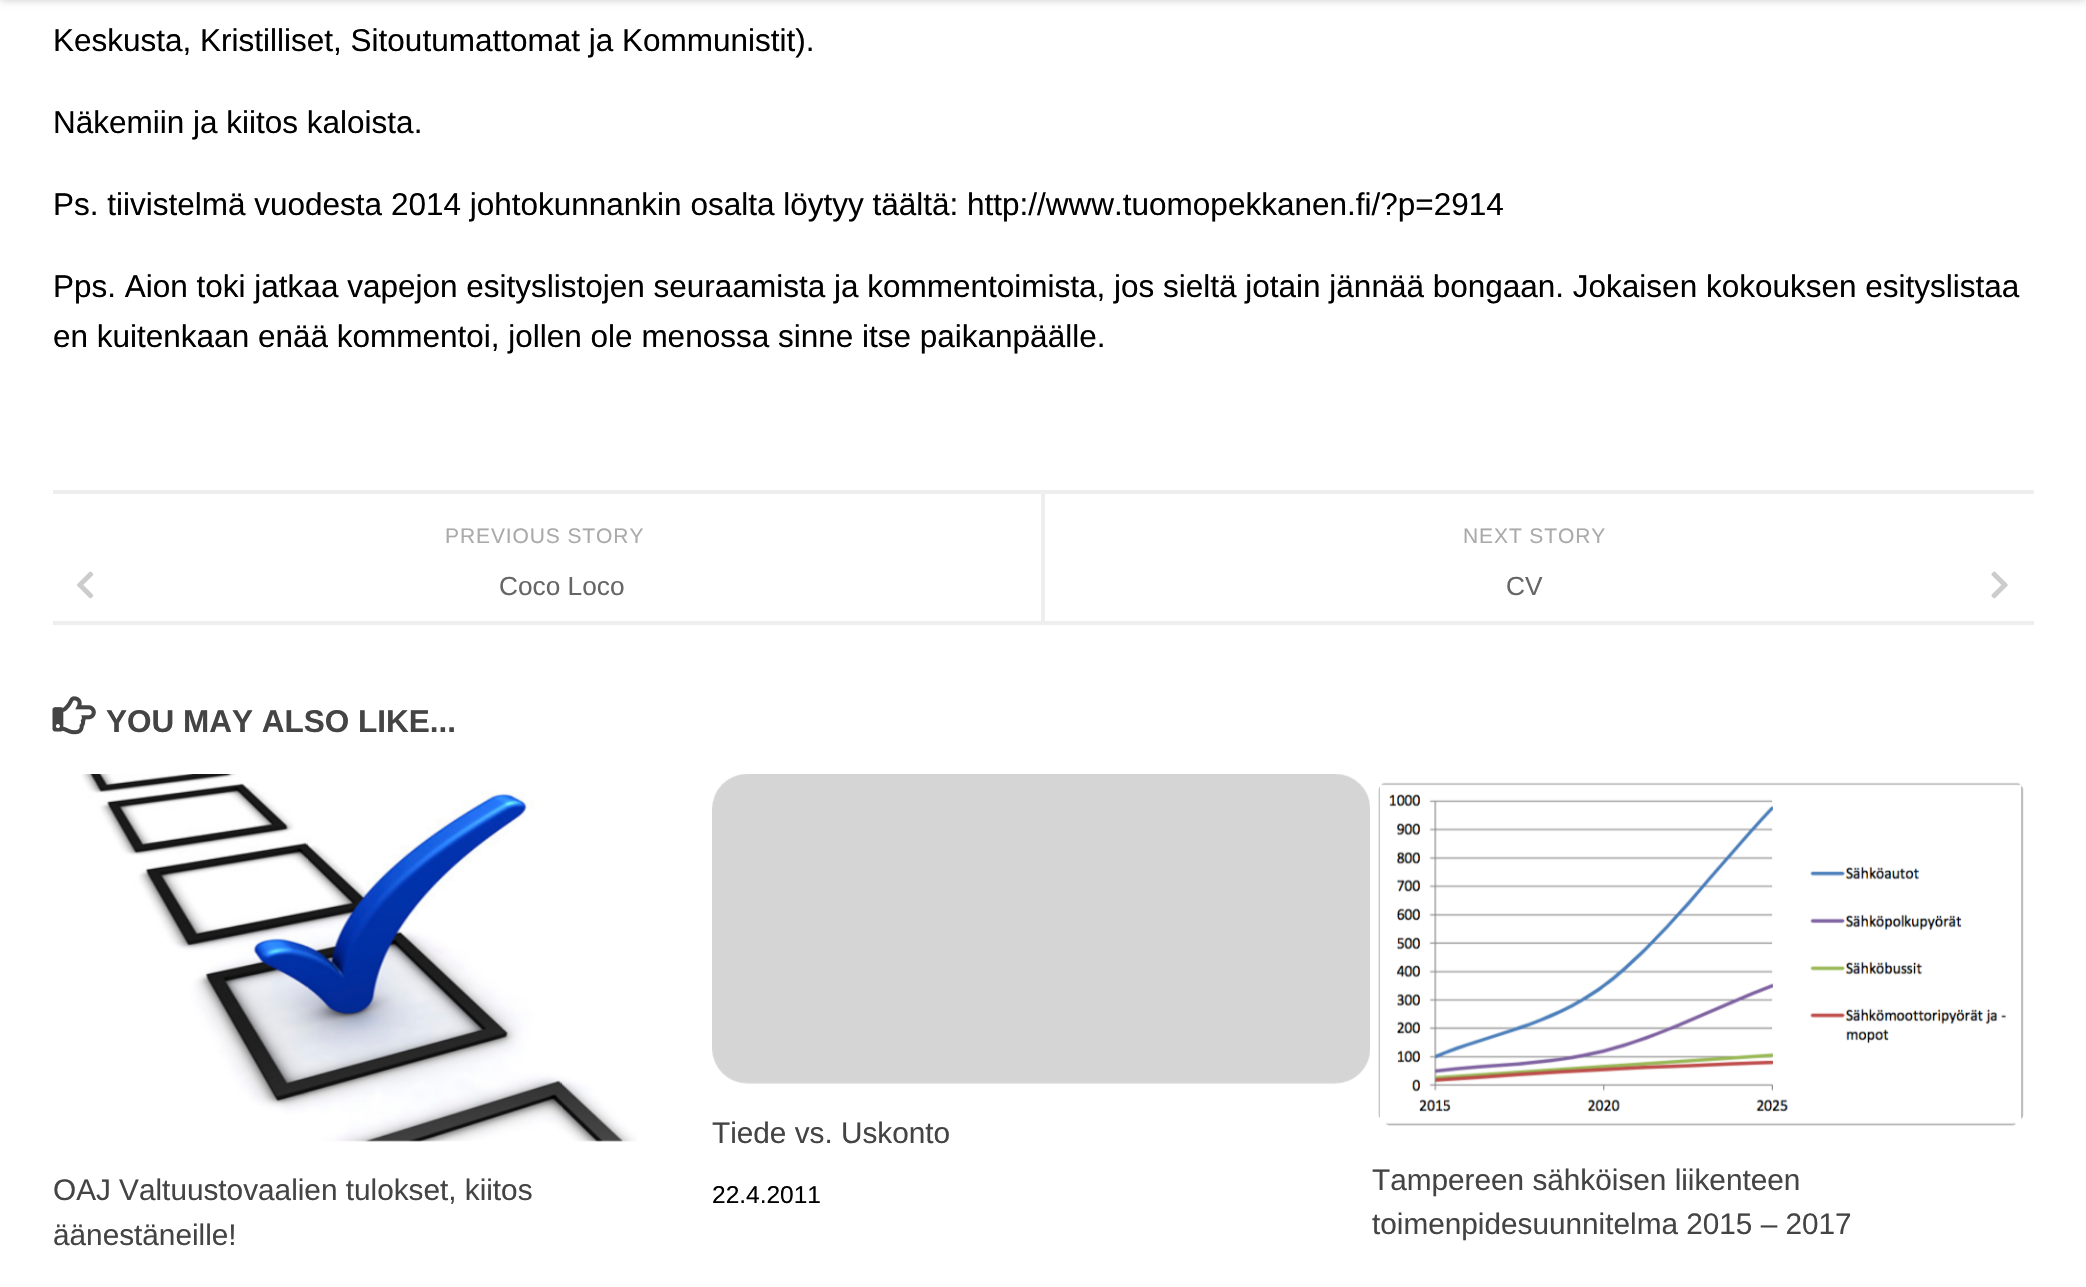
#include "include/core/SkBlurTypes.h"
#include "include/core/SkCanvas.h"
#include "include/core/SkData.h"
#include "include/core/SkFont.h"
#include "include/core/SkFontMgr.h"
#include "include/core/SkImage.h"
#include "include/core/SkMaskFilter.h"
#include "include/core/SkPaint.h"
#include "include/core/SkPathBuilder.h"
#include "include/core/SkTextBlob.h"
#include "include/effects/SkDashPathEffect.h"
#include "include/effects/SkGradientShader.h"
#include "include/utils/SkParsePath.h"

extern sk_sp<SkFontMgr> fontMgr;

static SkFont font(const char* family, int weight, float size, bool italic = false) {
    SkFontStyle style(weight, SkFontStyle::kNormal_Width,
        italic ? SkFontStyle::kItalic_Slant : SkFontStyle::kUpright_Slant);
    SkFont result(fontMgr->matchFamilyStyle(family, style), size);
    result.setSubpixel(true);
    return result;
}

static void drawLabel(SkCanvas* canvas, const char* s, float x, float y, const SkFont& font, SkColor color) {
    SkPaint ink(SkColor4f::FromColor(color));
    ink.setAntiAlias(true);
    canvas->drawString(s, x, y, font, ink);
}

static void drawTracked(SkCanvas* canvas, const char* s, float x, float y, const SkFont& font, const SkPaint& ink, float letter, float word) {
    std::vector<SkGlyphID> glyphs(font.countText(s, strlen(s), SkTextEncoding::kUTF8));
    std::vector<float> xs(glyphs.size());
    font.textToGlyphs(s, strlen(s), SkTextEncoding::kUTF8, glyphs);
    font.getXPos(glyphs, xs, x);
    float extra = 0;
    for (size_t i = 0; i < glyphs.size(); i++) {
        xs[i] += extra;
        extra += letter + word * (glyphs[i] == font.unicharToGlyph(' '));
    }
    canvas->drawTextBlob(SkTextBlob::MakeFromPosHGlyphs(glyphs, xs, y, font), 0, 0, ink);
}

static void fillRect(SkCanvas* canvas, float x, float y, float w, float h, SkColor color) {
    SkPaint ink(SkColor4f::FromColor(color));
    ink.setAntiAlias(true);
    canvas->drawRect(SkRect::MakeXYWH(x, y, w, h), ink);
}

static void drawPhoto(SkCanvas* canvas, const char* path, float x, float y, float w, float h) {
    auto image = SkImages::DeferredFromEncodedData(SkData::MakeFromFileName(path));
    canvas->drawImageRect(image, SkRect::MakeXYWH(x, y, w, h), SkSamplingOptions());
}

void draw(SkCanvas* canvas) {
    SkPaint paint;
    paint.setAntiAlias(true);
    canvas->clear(0xFFFFFFFF);
    paint.setColor(0x33000000);
    paint.setMaskFilter(SkMaskFilter::MakeBlur(kNormal_SkBlurStyle, 4.5f));
    canvas->drawRect(SkRect::MakeXYWH(0, -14, 2086, 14), paint);
    paint.setMaskFilter(nullptr);
    SkFont font1 = font("Liberation Sans", 400, 31.5f);
    drawLabel(canvas, "Keskusta, Kristilliset, Sitoutumattomat ja Kommunistit).", 53, 51, font1, 0xFF000000);
    drawLabel(canvas, "Näkemiin ja kiitos kaloista.", 53, 133, font1, 0xFF000000);
    drawLabel(canvas, "Ps. tiivistelmä vuodesta 2014 johtokunnankin osalta löytyy täältä: http://www.tuomopekkanen.fi/?p=2914", 53, 215, font1, 0xFF000000);
    drawLabel(canvas, "Pps. Aion toki jatkaa vapejon esityslistojen seuraamista ja kommentoimista, jos sieltä jotain jännää bongaan. Jokaisen kokouksen esityslistaa", 53, 297, font1, 0xFF000000);
    drawLabel(canvas, "en kuitenkaan enää kommentoi, jollen ole menossa sinne itse paikanpäälle.", 53, 347, font1, 0xFF000000);
    fillRect(canvas, 53, 490, 1981, 4, 0xFFEEEEEE);
    fillRect(canvas, 53, 621, 1981, 4, 0xFFEEEEEE);
    SkFont font2 = font("Liberation Sans", 400, 21);
    paint.setColor(0xFFAAAAAA);
    drawTracked(canvas, "PREVIOUS STORY", 445, 543, font2, paint, 0.9f, 0);
    drawPhoto(canvas, "assets/img1.png", 77, 571, 17, 28);
    SkFont font3 = font("Liberation Sans", 400, 26.25f);
    drawLabel(canvas, "Coco Loco", 499, 595, font3, 0xFF666666);
    fillRect(canvas, 1041, 494, 4, 127, 0xFFEEEEEE);
    drawTracked(canvas, "NEXT STORY", 1463, 543, font2, paint, 0.9f, 0);
    drawLabel(canvas, "CV", 1506, 595, font3, 0xFF666666);
    drawPhoto(canvas, "assets/img2.png", 1991, 571, 17, 28);
    drawPhoto(canvas, "assets/img3.png", 52, 696, 44, 39);
    SkFont font4 = font("Liberation Sans", 700, 31.5f);
    drawLabel(canvas, "YOU MAY ALSO LIKE...", 106, 732, font4, 0xFF444444);
    drawPhoto(canvas, "assets/img4.png", 81, 774, 556, 368);
    SkFont font5 = font("Liberation Sans", 400, 29.75f);
    drawLabel(canvas, "OAJ Valtuustovaalien tulokset, kiitos", 53, 1200, font5, 0xFF444444);
    drawLabel(canvas, "äänestäneille!", 53, 1245, font5, 0xFF444444);
    drawPhoto(canvas, "assets/img5.png", 712, 774, 658, 310);
    drawLabel(canvas, "Tiede vs. Uskonto", 712, 1143, font5, 0xFF444444);
    SkFont font6 = font("Liberation Sans", 400, 24.5f);
    drawLabel(canvas, "22.4.2011", 712, 1203, font6, 0xFF000000);
    drawPhoto(canvas, "assets/img6.png", 1378, 782, 646, 344);
    drawLabel(canvas, "Tampereen sähköisen liikenteen", 1372, 1190, font5, 0xFF444444);
    drawLabel(canvas, "toimenpidesuunnitelma 2015 – 2017", 1372, 1234, font5, 0xFF444444);
}
